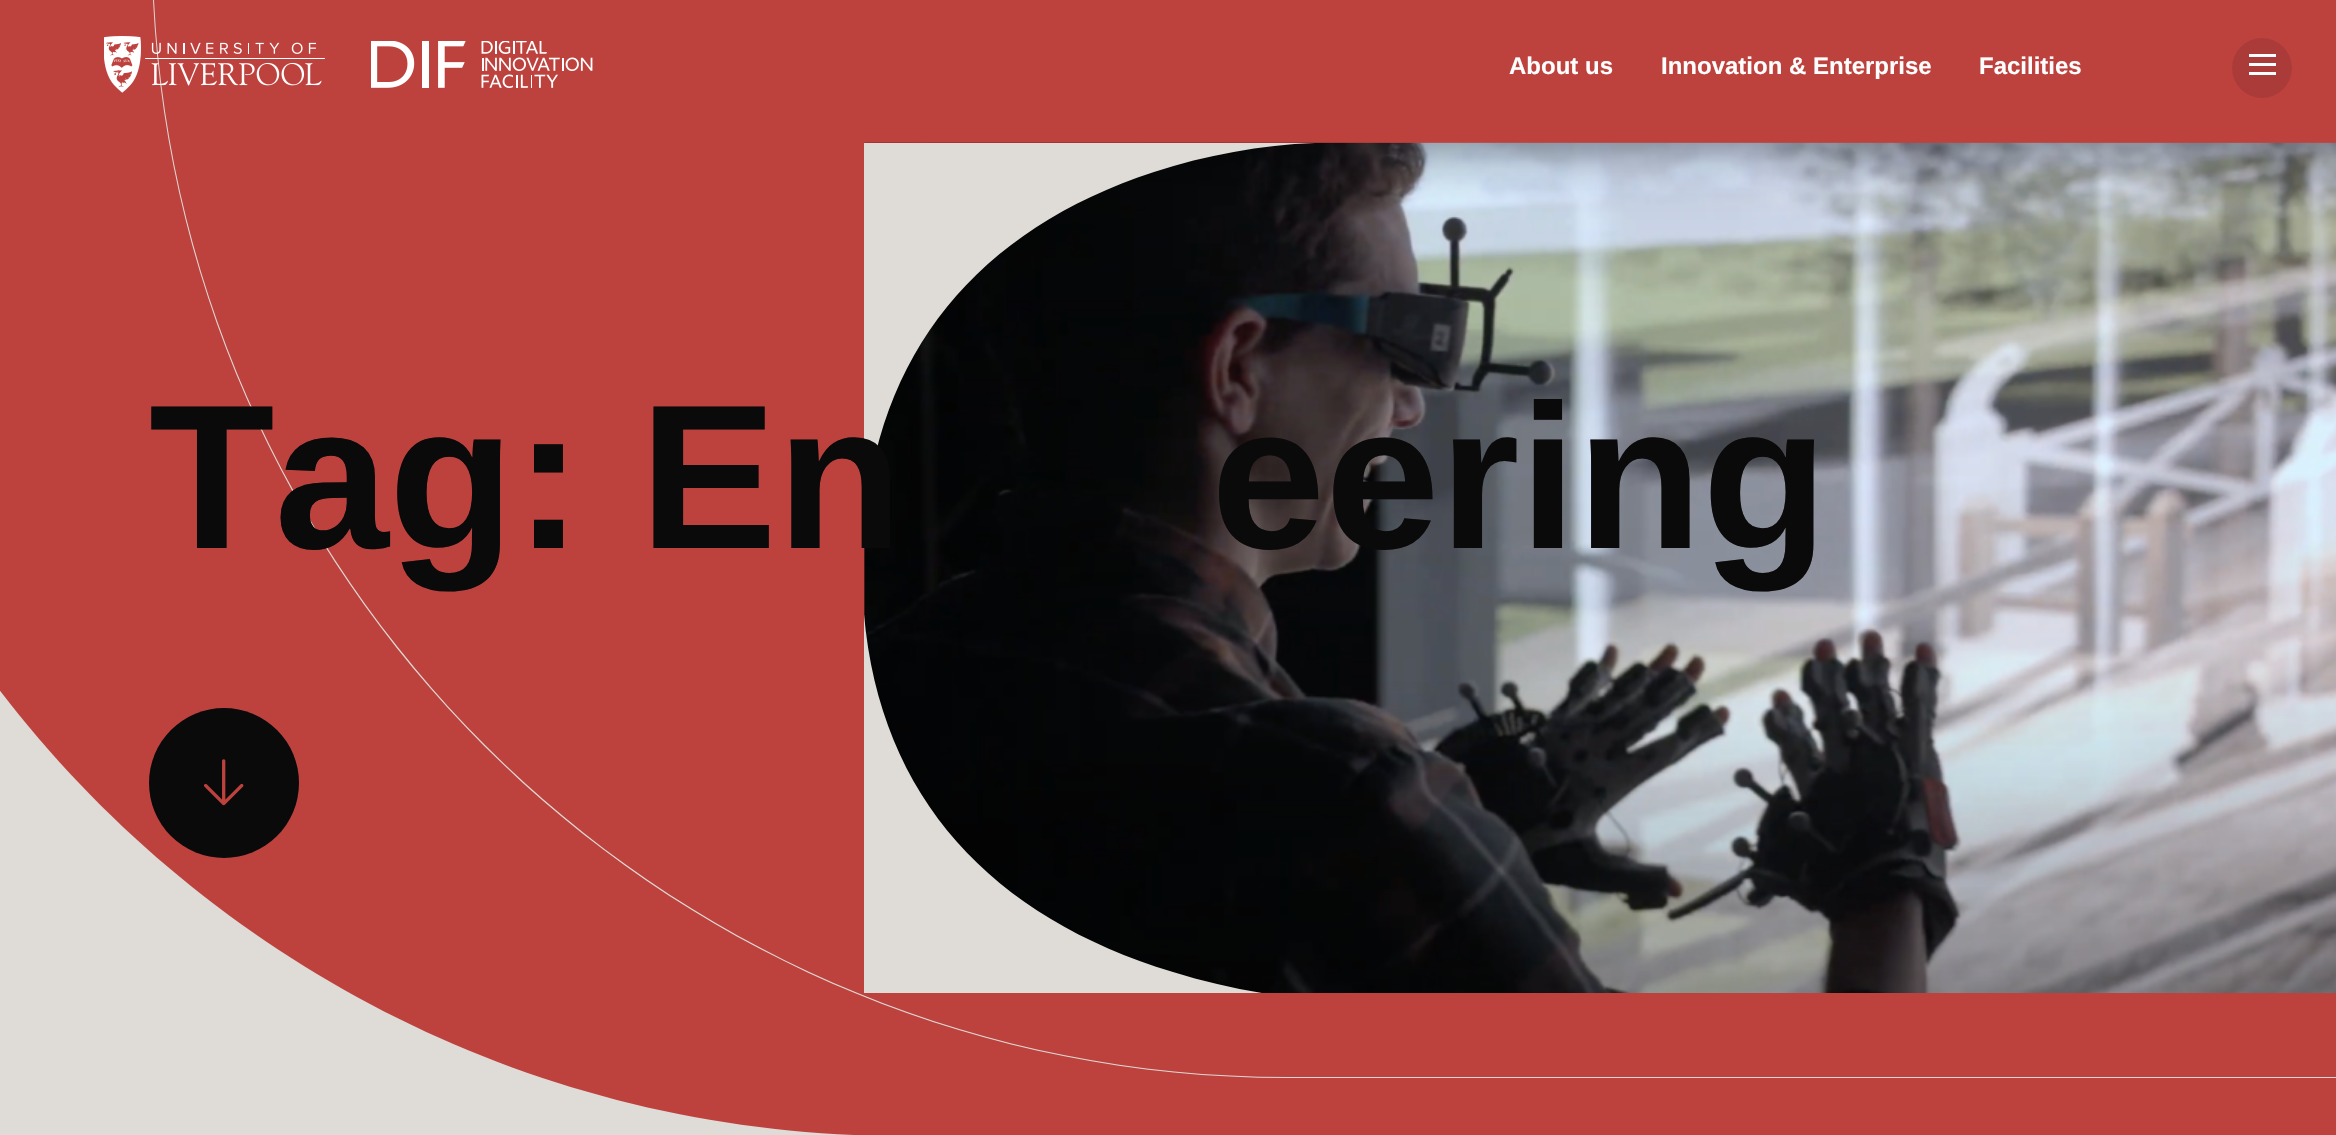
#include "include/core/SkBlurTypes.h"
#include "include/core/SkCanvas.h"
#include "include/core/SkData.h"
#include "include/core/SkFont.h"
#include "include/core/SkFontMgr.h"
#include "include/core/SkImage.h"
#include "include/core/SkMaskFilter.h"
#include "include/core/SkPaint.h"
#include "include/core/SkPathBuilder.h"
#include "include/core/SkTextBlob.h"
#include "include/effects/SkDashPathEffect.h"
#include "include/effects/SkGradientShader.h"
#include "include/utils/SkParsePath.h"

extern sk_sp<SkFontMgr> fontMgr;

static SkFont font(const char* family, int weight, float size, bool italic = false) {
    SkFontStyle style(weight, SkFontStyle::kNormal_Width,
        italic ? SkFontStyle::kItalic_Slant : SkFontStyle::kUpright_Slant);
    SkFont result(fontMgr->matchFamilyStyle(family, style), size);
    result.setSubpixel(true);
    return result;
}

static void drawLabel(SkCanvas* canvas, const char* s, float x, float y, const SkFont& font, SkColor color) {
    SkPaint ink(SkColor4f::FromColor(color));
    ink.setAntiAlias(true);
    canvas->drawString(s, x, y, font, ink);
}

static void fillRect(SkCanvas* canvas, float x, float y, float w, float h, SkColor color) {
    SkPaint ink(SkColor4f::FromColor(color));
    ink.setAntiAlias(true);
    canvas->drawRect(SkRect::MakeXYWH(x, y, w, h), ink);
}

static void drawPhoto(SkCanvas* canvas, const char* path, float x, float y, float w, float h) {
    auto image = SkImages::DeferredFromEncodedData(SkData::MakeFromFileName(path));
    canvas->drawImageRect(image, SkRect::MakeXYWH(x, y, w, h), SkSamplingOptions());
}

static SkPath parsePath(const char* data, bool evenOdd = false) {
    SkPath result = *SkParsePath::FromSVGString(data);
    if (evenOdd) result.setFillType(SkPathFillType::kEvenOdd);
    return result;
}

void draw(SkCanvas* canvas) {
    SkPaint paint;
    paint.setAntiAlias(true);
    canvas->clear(0xFFDFDCD8);
    paint.setColor(0xFFBD423E);
    canvas->drawPath(parsePath("M-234 0H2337V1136H902C274.5 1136-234 627.5-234 0Z"), paint);
    drawPhoto(canvas, "assets/img3.png", 864, 142, 1472, 851);
    canvas->save();
    canvas->clipRect(SkRect::MakeXYWH(864, 143, 452, 850));
    paint.setColor(0xFFDFDCD8);
    canvas->drawPath(parsePath("M1315 1003H862V570C863 779 978 913 1173 972C1202 981 1232 988 1262 993L1315 1000ZM862 567V143H1315C1261 145 1206 155 1154 172C967 233 863 369 863 567Z"), paint);
    canvas->restore();
    paint.setColor(0xFFE0D7D3);
    canvas->drawPath(parsePath("M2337 1078H1287C679 1078 183 601 153 0H154C184 600 680 1077 1287 1077H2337Z"), paint);
    drawPhoto(canvas, "assets/img1.png", 104, 36, 221, 57);
    drawPhoto(canvas, "assets/img2.png", 371, 41, 222, 47);
    SkFont font1 = font("Liberation Sans", 700, 24);
    drawLabel(canvas, "About us", 1509, 74, font1, 0xFFFEFEFE);
    drawLabel(canvas, "Innovation & Enterprise", 1661, 74, font1, 0xFFFEFEFE);
    drawLabel(canvas, "Facilities", 1979, 74, font1, 0xFFFEFEFE);
    paint.setColor(0xFFAA3B38);
    canvas->drawCircle(2262, 68, 30, paint);
    fillRect(canvas, 2249, 72, 27, 3, 0xFFFEFEFE);
    fillRect(canvas, 2249, 54, 27, 3, 0xFFFEFEFE);
    fillRect(canvas, 2249, 63, 27, 3, 0xFFFEFEFE);
    SkFont font2 = font("Liberation Sans", 700, 205.5f);
    drawLabel(canvas, "Tag: En", 149, 548, font2, 0xFF0A0A0A);
    drawLabel(canvas, "eering", 1211, 548, font2, 0xFF0A0A0A);
    paint.setColor(0xFF0A0A0A);
    canvas->drawCircle(224, 783, 75, paint);
    drawPhoto(canvas, "assets/img4.png", 204, 759, 40, 47);
}
